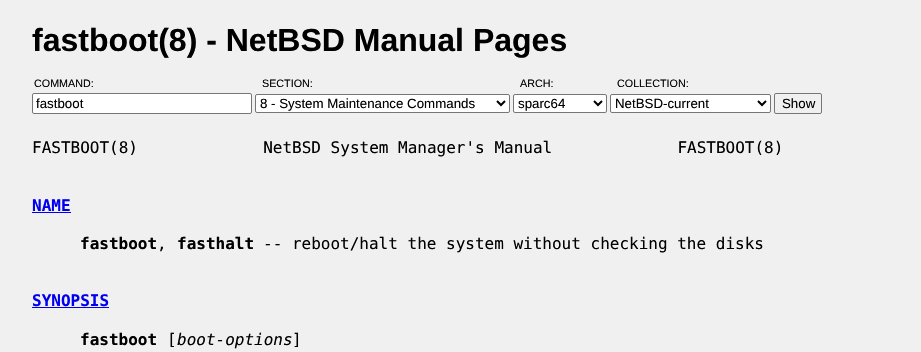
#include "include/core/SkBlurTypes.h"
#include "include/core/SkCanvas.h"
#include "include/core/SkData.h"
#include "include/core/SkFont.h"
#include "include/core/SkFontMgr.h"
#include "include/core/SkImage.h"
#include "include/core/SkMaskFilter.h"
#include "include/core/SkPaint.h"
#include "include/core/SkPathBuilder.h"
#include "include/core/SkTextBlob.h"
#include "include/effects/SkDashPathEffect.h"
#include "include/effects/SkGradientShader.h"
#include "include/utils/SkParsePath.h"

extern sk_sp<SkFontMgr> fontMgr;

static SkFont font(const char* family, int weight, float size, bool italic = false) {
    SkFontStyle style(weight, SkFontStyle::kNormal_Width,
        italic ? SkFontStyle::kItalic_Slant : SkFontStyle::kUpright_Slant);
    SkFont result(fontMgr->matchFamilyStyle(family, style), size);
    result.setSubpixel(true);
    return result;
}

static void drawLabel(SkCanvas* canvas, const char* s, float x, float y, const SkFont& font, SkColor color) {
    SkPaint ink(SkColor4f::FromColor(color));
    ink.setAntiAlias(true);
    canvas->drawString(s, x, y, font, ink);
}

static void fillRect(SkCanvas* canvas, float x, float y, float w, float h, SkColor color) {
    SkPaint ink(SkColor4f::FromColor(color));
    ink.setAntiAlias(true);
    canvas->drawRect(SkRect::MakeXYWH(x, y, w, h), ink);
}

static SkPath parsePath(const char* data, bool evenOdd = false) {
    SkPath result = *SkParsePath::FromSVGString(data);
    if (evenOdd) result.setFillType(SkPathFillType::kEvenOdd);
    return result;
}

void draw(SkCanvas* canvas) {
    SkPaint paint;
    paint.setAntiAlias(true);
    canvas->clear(0xFFF0F0F0);
    SkFont font1 = font("Liberation Sans", 700, 32);
    drawLabel(canvas, "fastboot(8) - NetBSD Manual Pages", 32, 51, font1, 0xFF000000);
    SkFont font2 = font("Liberation Sans", 400, 10.75f);
    drawLabel(canvas, "COMMAND:", 34, 87, font2, 0xFF000000);
    paint.setColor(0xFFFFFFFF);
    canvas->drawRoundRect(SkRect::MakeXYWH(32.5f, 93.5f, 219, 20), 1.5f, 1.5f, paint);
    paint.setStroke(true);
    paint.setStrokeWidth(1);
    paint.setColor(0xFF767676);
    canvas->drawRoundRect(SkRect::MakeXYWH(32.5f, 93.5f, 219, 20), 1.5f, 1.5f, paint);
    SkFont font3 = font("Liberation Sans", 400, 13.3f);
    drawLabel(canvas, "fastboot", 36, 108, font3, 0xFF000000);
    drawLabel(canvas, "SECTION:", 262, 87, font2, 0xFF000000);
    paint.setStroke(false);
    paint.setColor(0xFFFFFFFF);
    canvas->drawRoundRect(SkRect::MakeXYWH(255.5f, 94.5f, 254, 18), 1.5f, 1.5f, paint);
    paint.setStroke(true);
    paint.setColor(0xFF767676);
    canvas->drawRoundRect(SkRect::MakeXYWH(255.5f, 94.5f, 254, 18), 1.5f, 1.5f, paint);
    paint.setStrokeWidth(2);
    paint.setColor(0xFF000000);
    canvas->drawPath(parsePath("M497 101L501 105L505 101"), paint);
    drawLabel(canvas, "8 - System Maintenance Commands", 260, 108, font3, 0xFF000000);
    drawLabel(canvas, "ARCH:", 520, 87, font2, 0xFF000000);
    paint.setStroke(false);
    paint.setColor(0xFFFFFFFF);
    canvas->drawRoundRect(SkRect::MakeXYWH(513.5f, 94.5f, 93, 18), 1.5f, 1.5f, paint);
    paint.setStroke(true);
    paint.setStrokeWidth(1);
    paint.setColor(0xFF767676);
    canvas->drawRoundRect(SkRect::MakeXYWH(513.5f, 94.5f, 93, 18), 1.5f, 1.5f, paint);
    paint.setStrokeWidth(2);
    paint.setColor(0xFF000000);
    canvas->drawPath(parsePath("M594 101L598 105L602 101"), paint);
    drawLabel(canvas, "sparc64", 518, 108, font3, 0xFF000000);
    drawLabel(canvas, "COLLECTION:", 617, 87, font2, 0xFF000000);
    paint.setStroke(false);
    paint.setColor(0xFFFFFFFF);
    canvas->drawRoundRect(SkRect::MakeXYWH(610.5f, 94.5f, 160, 18), 1.5f, 1.5f, paint);
    paint.setStroke(true);
    paint.setStrokeWidth(1);
    paint.setColor(0xFF767676);
    canvas->drawRoundRect(SkRect::MakeXYWH(610.5f, 94.5f, 160, 18), 1.5f, 1.5f, paint);
    paint.setStrokeWidth(2);
    paint.setColor(0xFF000000);
    canvas->drawPath(parsePath("M758 101L762 105L766 101"), paint);
    drawLabel(canvas, "NetBSD-current", 615, 108, font3, 0xFF000000);
    paint.setStrokeWidth(1);
    paint.setColor(0xFF767676);
    canvas->drawRoundRect(SkRect::MakeXYWH(774.5f, 93.5f, 47, 20), 1.5f, 1.5f, paint);
    drawLabel(canvas, "Show", 782, 108, font3, 0xFF000000);
    SkFont font4 = font("DejaVu Sans Mono", 400, 16);
    drawLabel(canvas, "FASTBOOT(8)             NetBSD System Manager's Manual             FASTBOOT(8)", 32, 153, font4, 0xFF000000);
    SkFont font5 = font("DejaVu Sans Mono", 700, 16);
    drawLabel(canvas, "NAME", 32, 211, font5, 0xFF0000F0);
    fillRect(canvas, 32, 212, 39, 1, 0xFF0000F0);
    drawLabel(canvas, "fastboot", 80, 249, font5, 0xFF000000);
    drawLabel(canvas, ",", 157, 249, font4, 0xFF000000);
    drawLabel(canvas, "fasthalt", 177, 249, font5, 0xFF000000);
    drawLabel(canvas, "-- reboot/halt the system without checking the disks", 263, 249, font4, 0xFF000000);
    drawLabel(canvas, "SYNOPSIS", 32, 306, font5, 0xFF0000F0);
    fillRect(canvas, 32, 307, 77, 1, 0xFF0000F0);
    drawLabel(canvas, "fastboot", 80, 345, font5, 0xFF000000);
    drawLabel(canvas, "[", 167, 345, font4, 0xFF000000);
    SkFont font6 = font("DejaVu Sans Mono", 400, 16, true);
    drawLabel(canvas, "boot-options", 177, 345, font6, 0xFF000000);
    drawLabel(canvas, "]", 292, 345, font4, 0xFF000000);
}
